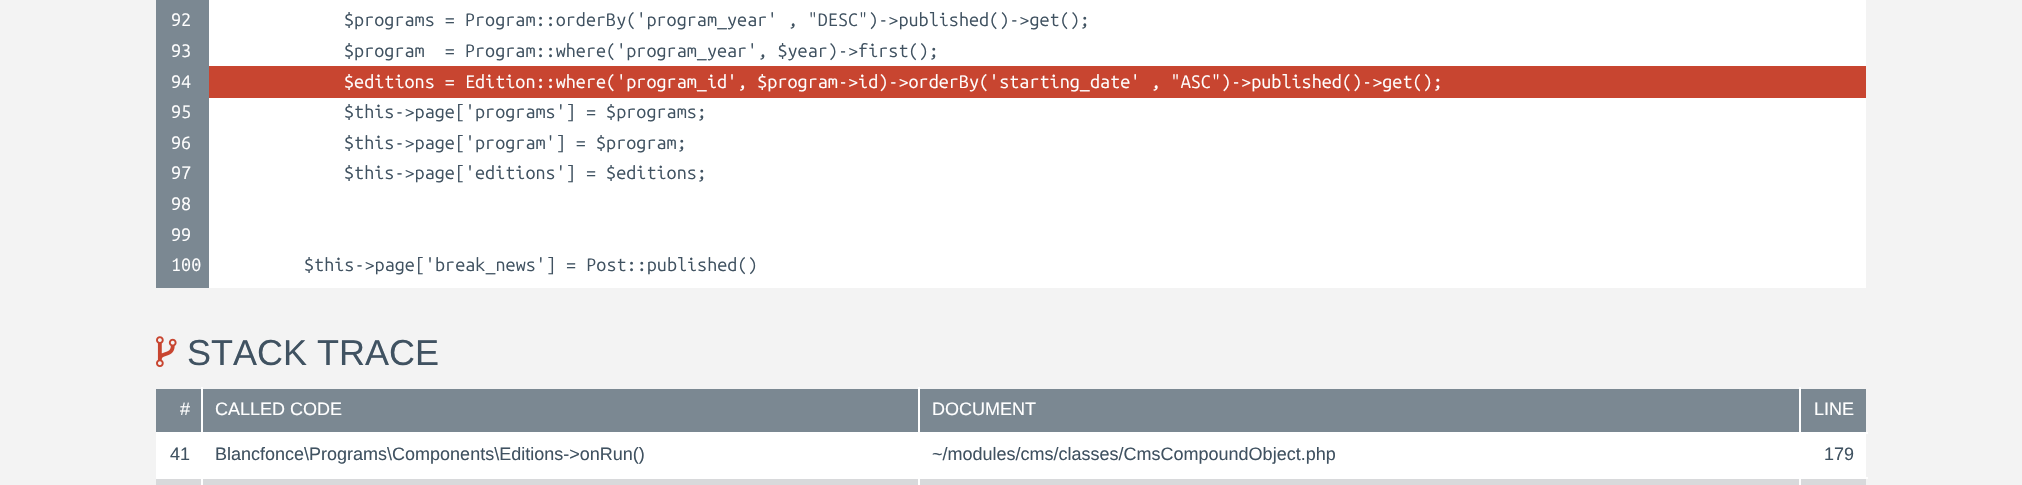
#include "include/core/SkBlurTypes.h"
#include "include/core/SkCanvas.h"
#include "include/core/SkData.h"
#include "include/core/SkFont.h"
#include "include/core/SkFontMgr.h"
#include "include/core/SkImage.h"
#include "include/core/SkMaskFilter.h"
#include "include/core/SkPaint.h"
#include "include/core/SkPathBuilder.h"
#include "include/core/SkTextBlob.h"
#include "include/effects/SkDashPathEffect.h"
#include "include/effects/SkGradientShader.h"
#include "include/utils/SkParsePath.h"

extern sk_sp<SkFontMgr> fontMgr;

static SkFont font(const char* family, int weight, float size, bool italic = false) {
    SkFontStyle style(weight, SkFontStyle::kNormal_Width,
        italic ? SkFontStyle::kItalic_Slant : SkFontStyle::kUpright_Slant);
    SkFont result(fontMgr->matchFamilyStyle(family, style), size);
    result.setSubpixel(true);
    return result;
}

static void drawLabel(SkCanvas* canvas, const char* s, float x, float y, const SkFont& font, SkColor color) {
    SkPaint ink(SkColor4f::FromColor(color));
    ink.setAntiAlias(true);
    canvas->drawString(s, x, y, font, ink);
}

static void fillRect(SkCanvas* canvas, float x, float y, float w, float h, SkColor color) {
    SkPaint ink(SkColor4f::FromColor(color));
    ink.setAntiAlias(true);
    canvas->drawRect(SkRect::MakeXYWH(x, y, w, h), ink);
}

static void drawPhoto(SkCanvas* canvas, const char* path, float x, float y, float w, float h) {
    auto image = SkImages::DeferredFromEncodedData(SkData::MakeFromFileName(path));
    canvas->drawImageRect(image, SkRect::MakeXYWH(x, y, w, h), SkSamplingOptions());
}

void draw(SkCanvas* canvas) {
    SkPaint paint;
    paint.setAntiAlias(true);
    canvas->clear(0xFFF3F3F3);
    fillRect(canvas, 209, 0, 1657, 288, 0xFFFFFFFF);
    fillRect(canvas, 156, 0, 53, 288, 0xFF7B8892);
    SkFont font1 = font("Ubuntu Mono", 400, 18);
    drawLabel(canvas, "92", 171, 26, font1, 0xFFFFFFFF);
    drawLabel(canvas, "93", 171, 57, font1, 0xFFFFFFFF);
    drawLabel(canvas, "94", 171, 88, font1, 0xFFFFFFFF);
    drawLabel(canvas, "95", 171, 118, font1, 0xFFFFFFFF);
    drawLabel(canvas, "96", 171, 149, font1, 0xFFFFFFFF);
    drawLabel(canvas, "97", 171, 179, font1, 0xFFFFFFFF);
    drawLabel(canvas, "98", 171, 210, font1, 0xFFFFFFFF);
    drawLabel(canvas, "99", 171, 241, font1, 0xFFFFFFFF);
    drawLabel(canvas, "100", 171, 271, font1, 0xFFFFFFFF);
    drawLabel(canvas, "$programs = Program::orderBy('program_year' , \"DESC\")->published()->get();", 344, 26, font1, 0xFF405261);
    drawLabel(canvas, "$program  = Program::where('program_year', $year)->first();", 344, 57, font1, 0xFF405261);
    fillRect(canvas, 209, 66, 1657, 32, 0xFFC84530);
    drawLabel(canvas, "$editions = Edition::where('program_id', $program->id)->orderBy('starting_date' , \"ASC\")->published()->get();", 344, 88, font1, 0xFFFFFFFF);
    drawLabel(canvas, "$this->page['programs'] = $programs;", 344, 118, font1, 0xFF405261);
    drawLabel(canvas, "$this->page['program'] = $program;", 344, 149, font1, 0xFF405261);
    drawLabel(canvas, "$this->page['editions'] = $editions;", 344, 179, font1, 0xFF405261);
    drawLabel(canvas, "$this->page['break_news'] = Post::published()", 304, 271, font1, 0xFF405261);
    drawPhoto(canvas, "assets/img1.png", 156, 336, 21, 32);
    SkFont font2 = font("Liberation Sans", 400, 36);
    drawLabel(canvas, "STACK TRACE", 187, 365, font2, 0xFF405261);
    fillRect(canvas, 156, 389, 45, 43, 0xFF7B8892);
    SkFont font3 = font("Liberation Sans", 400, 18);
    drawLabel(canvas, "#", 180, 415, font3, 0xFFFFFFFF);
    fillRect(canvas, 203, 389, 715, 43, 0xFF7B8892);
    fillRect(canvas, 156, 432, 1643, 45, 0xFFFFFFFF);
    fillRect(canvas, 201, 387, 2, 47, 0xFFFFFFFF);
    drawLabel(canvas, "CALLED CODE", 215, 415, font3, 0xFFFFFFFF);
    fillRect(canvas, 920, 389, 879, 43, 0xFF7B8892);
    fillRect(canvas, 918, 387, 2, 47, 0xFFFFFFFF);
    drawLabel(canvas, "DOCUMENT", 932, 415, font3, 0xFFFFFFFF);
    fillRect(canvas, 1801, 389, 65, 43, 0xFF7B8892);
    fillRect(canvas, 1799, 432, 69, 2, 0xFFFFFFFF);
    fillRect(canvas, 1799, 387, 2, 47, 0xFFFFFFFF);
    drawLabel(canvas, "LINE", 1814, 415, font3, 0xFFFFFFFF);
    drawLabel(canvas, "41", 170, 460, font3, 0xFF405261);
    drawLabel(canvas, "Blancfonce\\Programs\\Components\\Editions->onRun()", 215, 460, font3, 0xFF405261);
    drawLabel(canvas, "~/modules/cms/classes/CmsCompoundObject.php", 932, 460, font3, 0xFF405261);
    fillRect(canvas, 1799, 434, 67, 43, 0xFFFFFFFF);
    drawLabel(canvas, "179", 1824, 460, font3, 0xFF405261);
    fillRect(canvas, 156, 479, 1710, 6, 0xFFD8D9DB);
    fillRect(canvas, 1799, 477, 69, 2, 0xFFFFFFFF);
    fillRect(canvas, 1799, 477, 2, 8, 0xFFFFFFFF);
    fillRect(canvas, 918, 477, 882, 2, 0xFFFFFFFF);
    fillRect(canvas, 918, 477, 2, 8, 0xFFFFFFFF);
    fillRect(canvas, 201, 477, 719, 2, 0xFFFFFFFF);
    fillRect(canvas, 201, 477, 2, 8, 0xFFFFFFFF);
    fillRect(canvas, 156, 477, 47, 2, 0xFFFFFFFF);
}
